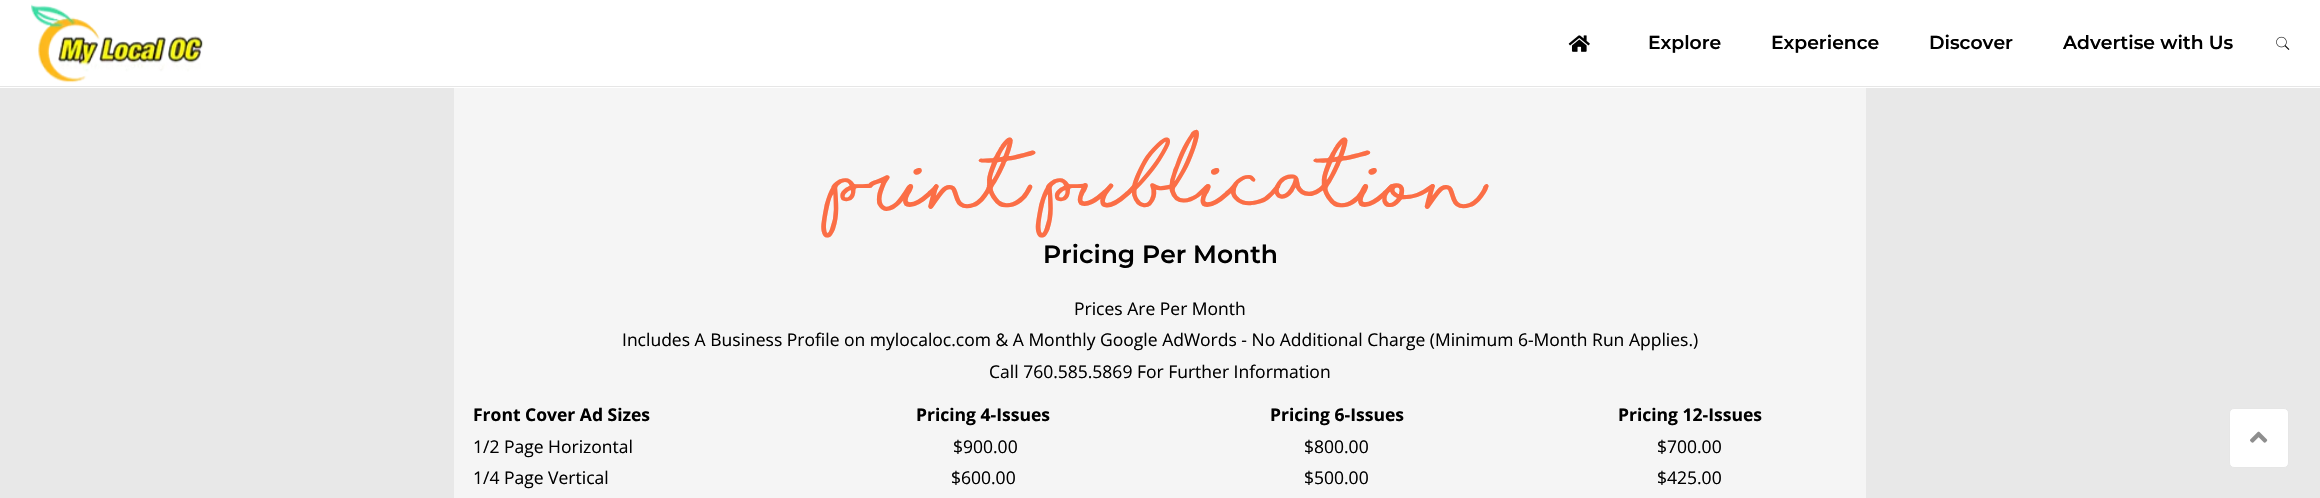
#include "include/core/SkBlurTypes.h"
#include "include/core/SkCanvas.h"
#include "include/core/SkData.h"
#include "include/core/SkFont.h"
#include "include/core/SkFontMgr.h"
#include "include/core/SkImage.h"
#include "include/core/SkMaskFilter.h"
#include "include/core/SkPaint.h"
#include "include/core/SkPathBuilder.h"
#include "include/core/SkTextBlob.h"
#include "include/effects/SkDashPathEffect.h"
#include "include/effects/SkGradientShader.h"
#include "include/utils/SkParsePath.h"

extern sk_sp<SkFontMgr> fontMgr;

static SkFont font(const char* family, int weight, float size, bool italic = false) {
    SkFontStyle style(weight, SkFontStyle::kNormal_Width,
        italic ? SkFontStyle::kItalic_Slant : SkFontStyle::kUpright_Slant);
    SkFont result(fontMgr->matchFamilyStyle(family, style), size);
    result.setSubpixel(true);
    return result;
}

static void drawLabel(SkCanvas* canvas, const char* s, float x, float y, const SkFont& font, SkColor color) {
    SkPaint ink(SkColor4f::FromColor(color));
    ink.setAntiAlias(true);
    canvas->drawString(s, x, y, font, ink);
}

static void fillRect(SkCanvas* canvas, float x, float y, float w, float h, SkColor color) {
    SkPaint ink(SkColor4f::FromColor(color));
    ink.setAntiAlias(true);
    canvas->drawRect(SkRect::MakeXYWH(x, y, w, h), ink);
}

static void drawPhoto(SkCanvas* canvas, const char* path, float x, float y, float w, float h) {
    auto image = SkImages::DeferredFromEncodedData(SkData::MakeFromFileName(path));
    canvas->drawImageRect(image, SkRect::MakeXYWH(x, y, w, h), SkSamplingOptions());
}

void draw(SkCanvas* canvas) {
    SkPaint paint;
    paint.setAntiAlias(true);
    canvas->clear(0xFFE8E8E8);
    fillRect(canvas, 0, 0, 2320, 88, 0xFFFFFFFF);
    fillRect(canvas, 0, 86, 2320, 1, 0xFFE6E6E6);
    drawPhoto(canvas, "assets/img1.png", 31, 4, 173, 79);
    drawPhoto(canvas, "assets/img2.png", 1568, 35, 22, 17);
    SkFont font1 = font("Montserrat", 600, 18.75f);
    drawLabel(canvas, "Explore", 1648, 49, font1, 0xFF000000);
    drawLabel(canvas, "Experience", 1771, 49, font1, 0xFF000000);
    drawLabel(canvas, "Discover", 1929, 49, font1, 0xFF000000);
    drawLabel(canvas, "Advertise with Us", 2063, 49, font1, 0xFF000000);
    drawPhoto(canvas, "assets/img3.png", 2276, 36, 14, 14);
    fillRect(canvas, 454, 88, 1412, 410, 0xFFF5F5F5);
    SkFont font2 = font("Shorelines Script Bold", 700, 70);
    drawLabel(canvas, "Print Publication", 833, 221, font2, 0xFFFB6E46);
    SkFont font3 = font("Montserrat", 600, 25);
    drawLabel(canvas, "Pricing Per Month", 1043, 263, font3, 0xFF000000);
    SkFont font4 = font("Open Sans", 400, 17.5f);
    drawLabel(canvas, "Prices Are Per Month", 1074, 315, font4, 0xFF000000);
    drawLabel(canvas, "Includes A Business Profile on mylocaloc.com & A Monthly Google AdWords - No Additional Charge (Minimum 6-Month Run Applies.)", 622, 346, font4, 0xFF000000);
    drawLabel(canvas, "Call 760.585.5869 For Further Information", 989, 378, font4, 0xFF000000);
    SkFont font5 = font("Open Sans", 700, 17.5f);
    drawLabel(canvas, "Front Cover Ad Sizes", 473, 421, font5, 0xFF000000);
    drawLabel(canvas, "1/2 Page Horizontal", 473, 453, font4, 0xFF000000);
    drawLabel(canvas, "1/4 Page Vertical", 473, 484, font4, 0xFF000000);
    drawLabel(canvas, "Pricing 4-Issues", 916, 421, font5, 0xFF000000);
    drawLabel(canvas, "$900.00", 953, 453, font4, 0xFF000000);
    drawLabel(canvas, "$600.00", 951, 484, font4, 0xFF000000);
    drawLabel(canvas, "Pricing 6-Issues", 1270, 421, font5, 0xFF000000);
    drawLabel(canvas, "$800.00", 1304, 453, font4, 0xFF000000);
    drawLabel(canvas, "$500.00", 1304, 484, font4, 0xFF000000);
    drawLabel(canvas, "Pricing 12-Issues", 1618, 421, font5, 0xFF000000);
    drawLabel(canvas, "$700.00", 1657, 453, font4, 0xFF000000);
    drawLabel(canvas, "$425.00", 1657, 484, font4, 0xFF000000);
    paint.setColor(0xFFFFFFFF);
    canvas->drawRoundRect(SkRect::MakeXYWH(2229.5f, 408.5f, 59, 59), 4.5f, 4.5f, paint);
    paint.setStroke(true);
    paint.setStrokeWidth(1);
    paint.setColor(0xFFE6E6E6);
    canvas->drawRoundRect(SkRect::MakeXYWH(2229.5f, 408.5f, 59, 59), 4.5f, 4.5f, paint);
    drawPhoto(canvas, "assets/img4.png", 2250, 431, 18, 12);
}
